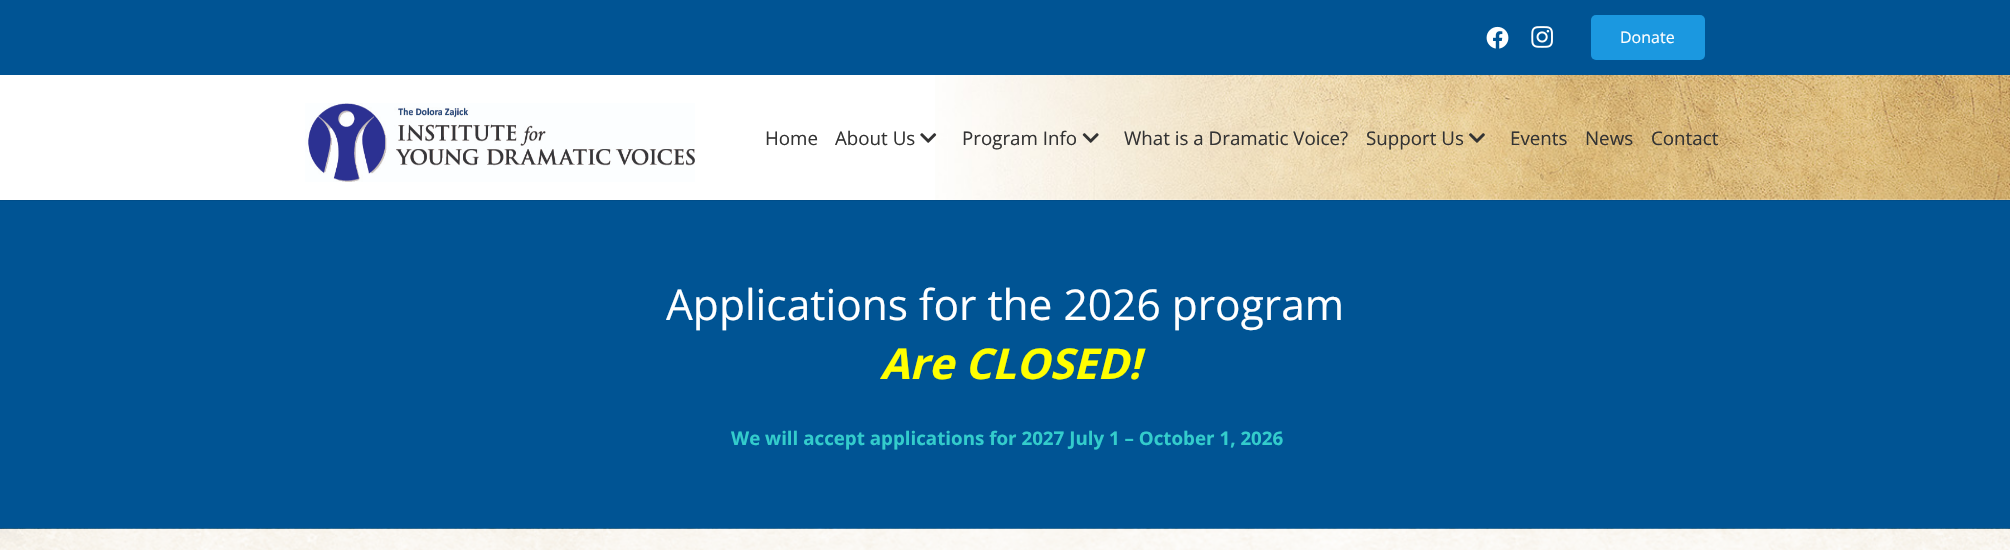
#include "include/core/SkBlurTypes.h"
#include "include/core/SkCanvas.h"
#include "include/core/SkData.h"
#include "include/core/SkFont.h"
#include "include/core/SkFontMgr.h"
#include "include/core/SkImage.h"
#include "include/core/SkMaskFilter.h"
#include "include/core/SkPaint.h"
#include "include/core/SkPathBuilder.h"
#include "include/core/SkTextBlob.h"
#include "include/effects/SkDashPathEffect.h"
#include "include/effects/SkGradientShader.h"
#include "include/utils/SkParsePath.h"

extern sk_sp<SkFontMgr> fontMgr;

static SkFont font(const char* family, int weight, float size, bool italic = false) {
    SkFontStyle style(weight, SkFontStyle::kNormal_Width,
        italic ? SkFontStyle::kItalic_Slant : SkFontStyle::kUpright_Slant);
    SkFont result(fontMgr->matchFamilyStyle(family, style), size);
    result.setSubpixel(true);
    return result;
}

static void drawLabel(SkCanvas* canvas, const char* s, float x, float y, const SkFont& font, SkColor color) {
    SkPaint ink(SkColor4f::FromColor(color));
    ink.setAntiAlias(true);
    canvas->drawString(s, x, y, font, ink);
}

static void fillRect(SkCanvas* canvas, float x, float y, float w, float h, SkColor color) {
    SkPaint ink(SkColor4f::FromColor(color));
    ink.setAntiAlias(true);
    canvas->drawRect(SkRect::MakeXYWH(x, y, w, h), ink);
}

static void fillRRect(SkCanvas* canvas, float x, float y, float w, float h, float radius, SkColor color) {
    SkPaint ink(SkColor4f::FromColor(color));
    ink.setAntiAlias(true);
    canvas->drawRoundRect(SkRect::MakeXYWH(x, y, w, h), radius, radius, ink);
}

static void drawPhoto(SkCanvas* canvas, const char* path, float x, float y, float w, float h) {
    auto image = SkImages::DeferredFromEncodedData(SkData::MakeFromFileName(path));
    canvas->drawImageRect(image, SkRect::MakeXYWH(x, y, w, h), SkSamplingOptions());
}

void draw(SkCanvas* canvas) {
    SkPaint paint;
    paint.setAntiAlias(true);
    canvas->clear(0xFF005494);
    drawPhoto(canvas, "assets/img1.png", 1486, 26, 23, 23);
    drawPhoto(canvas, "assets/img2.png", 1531, 26, 22, 22);
    fillRRect(canvas, 1591, 15, 114, 45, 5, 0xFF1B98E0);
    SkFont font1 = font("Open Sans", 400, 16);
    drawLabel(canvas, "Donate", 1620, 43, font1, 0xFFFFFFFF);
    fillRect(canvas, 0, 200, 2010, 1, 0xFF004D88);
    fillRect(canvas, 0, 75, 2010, 125, 0xFFFFFFFF);
    drawPhoto(canvas, "assets/img3.png", 935, 75, 1075, 125);
    drawPhoto(canvas, "assets/img4.png", 305, 103, 390, 79);
    SkFont font2 = font("Open Sans", 400, 18.75f);
    drawLabel(canvas, "Home", 765, 145, font2, 0xFF333333);
    drawLabel(canvas, "About Us", 835, 145, font2, 0xFF333333);
    drawPhoto(canvas, "assets/img5.png", 920, 133, 17, 10);
    drawLabel(canvas, "Program Info", 962, 145, font2, 0xFF333333);
    drawPhoto(canvas, "assets/img6.png", 1082, 133, 17, 10);
    drawLabel(canvas, "What is a Dramatic Voice?", 1124, 145, font2, 0xFF333333);
    drawLabel(canvas, "Support Us", 1366, 145, font2, 0xFF333333);
    drawPhoto(canvas, "assets/img7.png", 1469, 133, 16, 10);
    drawLabel(canvas, "Events", 1510, 145, font2, 0xFF333333);
    drawLabel(canvas, "News", 1585, 145, font2, 0xFF333333);
    drawLabel(canvas, "Contact", 1651, 145, font2, 0xFF333333);
    SkFont font3 = font("Open Sans", 400, 42.5f);
    drawLabel(canvas, "Applications for the 2026 program", 666, 320, font3, 0xFFFFFFFF);
    SkFont font4 = font("Open Sans", 700, 42.5f, true);
    drawLabel(canvas, "Are CLOSED!", 880, 379, font4, 0xFFFFFF00);
    SkFont font5 = font("Open Sans", 700, 18.75f);
    drawLabel(canvas, "We will accept applications for 2027 July 1 – October 1, 2026", 731, 445, font5, 0xFF33CCCC);
    drawPhoto(canvas, "assets/img8.png", 0, 528, 2010, 22);
}
